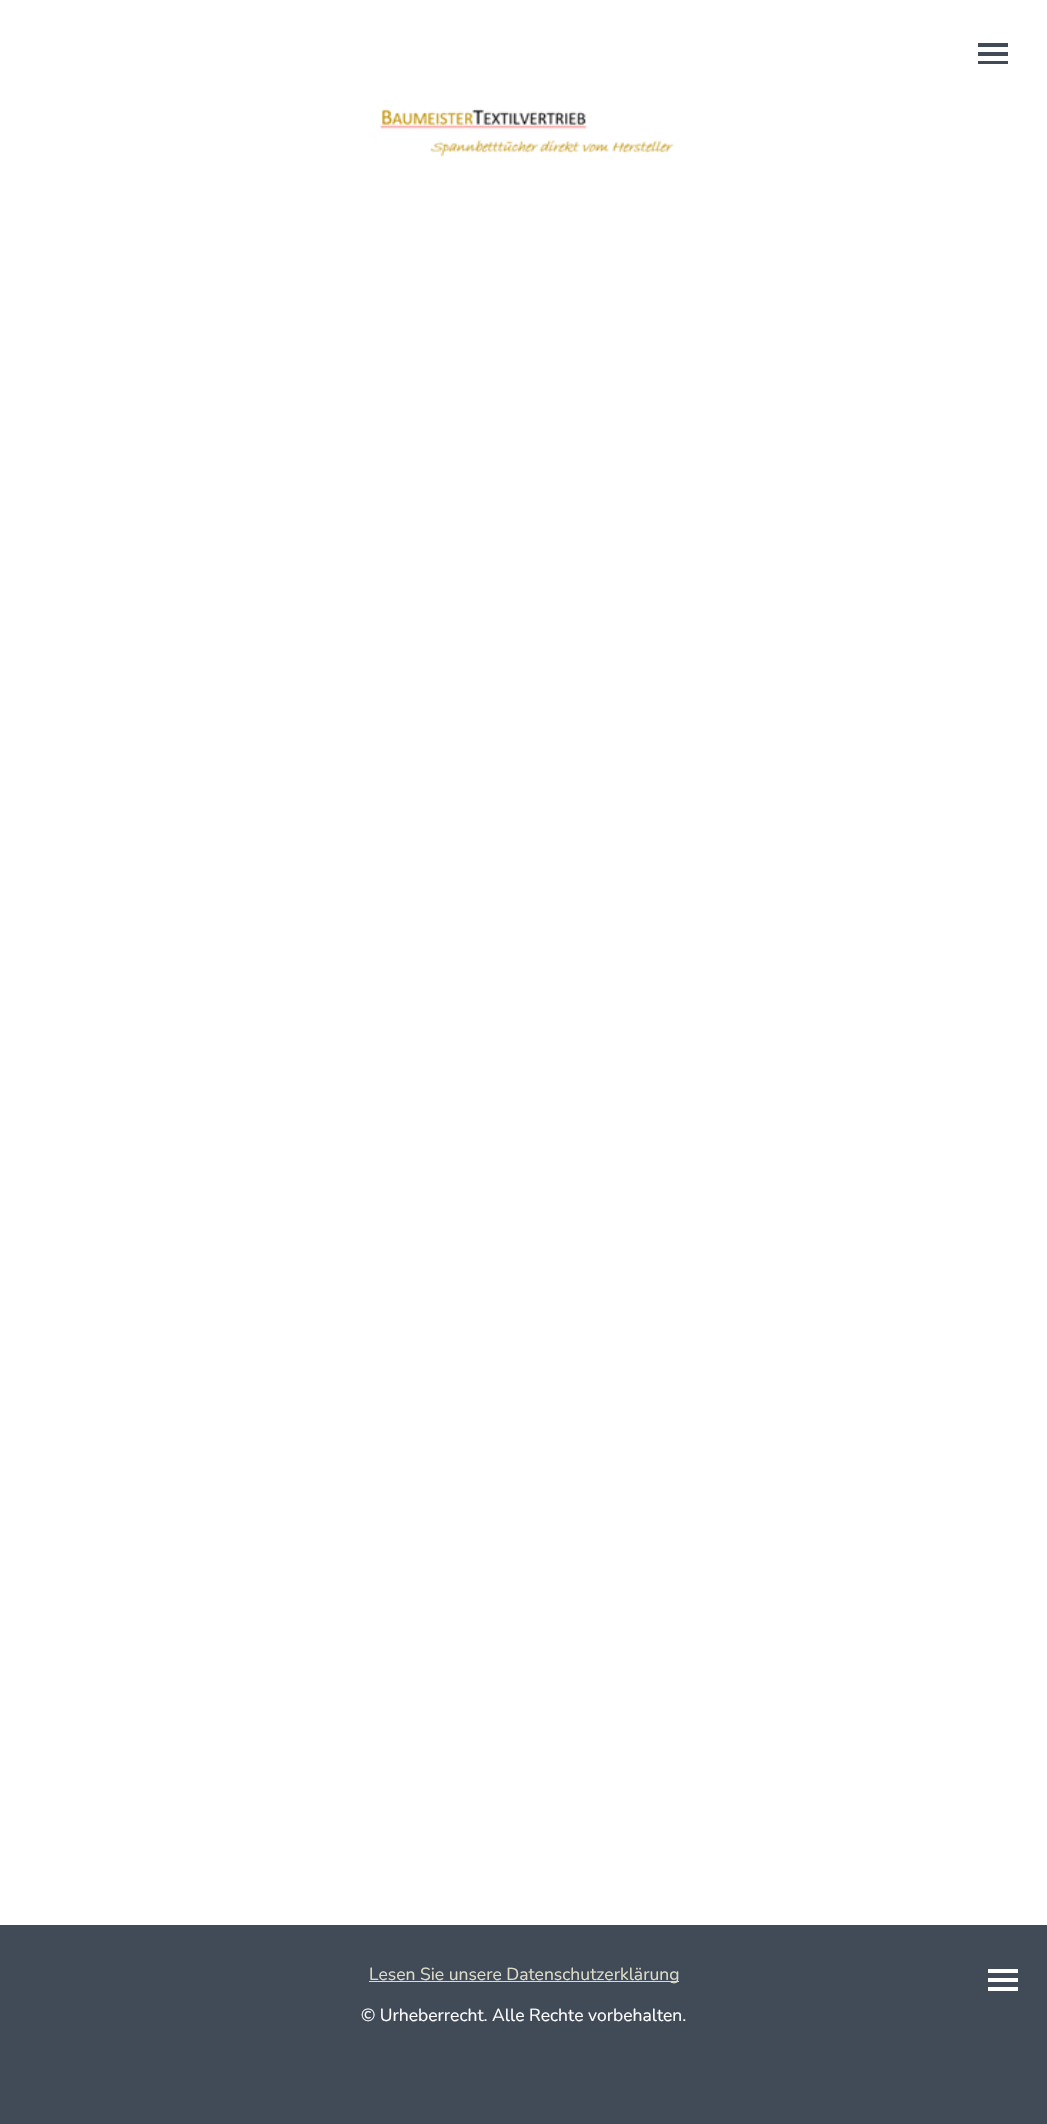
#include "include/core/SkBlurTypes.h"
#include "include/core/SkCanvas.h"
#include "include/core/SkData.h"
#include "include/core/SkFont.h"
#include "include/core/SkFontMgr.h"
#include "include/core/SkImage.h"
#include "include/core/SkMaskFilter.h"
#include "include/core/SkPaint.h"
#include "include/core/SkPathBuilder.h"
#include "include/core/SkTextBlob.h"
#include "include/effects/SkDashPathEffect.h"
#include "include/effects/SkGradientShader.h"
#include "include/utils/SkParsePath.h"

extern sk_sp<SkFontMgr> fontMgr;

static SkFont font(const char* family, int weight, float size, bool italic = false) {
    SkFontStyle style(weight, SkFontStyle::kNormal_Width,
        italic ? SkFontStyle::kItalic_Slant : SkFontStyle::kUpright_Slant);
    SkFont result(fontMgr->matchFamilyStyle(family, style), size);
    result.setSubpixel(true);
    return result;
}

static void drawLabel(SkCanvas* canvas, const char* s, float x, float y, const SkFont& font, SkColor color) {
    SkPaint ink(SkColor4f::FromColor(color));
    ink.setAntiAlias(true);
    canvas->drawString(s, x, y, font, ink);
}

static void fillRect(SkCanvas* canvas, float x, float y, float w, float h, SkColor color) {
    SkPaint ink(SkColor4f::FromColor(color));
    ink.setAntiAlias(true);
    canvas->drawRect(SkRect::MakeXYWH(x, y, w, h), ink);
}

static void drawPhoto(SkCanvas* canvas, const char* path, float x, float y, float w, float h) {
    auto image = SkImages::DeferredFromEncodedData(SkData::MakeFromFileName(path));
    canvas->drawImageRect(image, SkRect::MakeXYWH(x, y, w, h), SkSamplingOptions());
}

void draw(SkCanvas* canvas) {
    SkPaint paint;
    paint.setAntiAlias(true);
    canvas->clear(0xFFFFFFFF);
    fillRect(canvas, 978, 43, 30, 4, 0xFF414B58);
    fillRect(canvas, 978, 52, 30, 4, 0xFF414B58);
    fillRect(canvas, 978, 61, 30, 3, 0xFF414B58);
    drawPhoto(canvas, "assets/img1.png", 379, 108, 295, 49);
    fillRect(canvas, 0, 1925, 1047, 199, 0xFF414B58);
    fillRect(canvas, 369, 1981, 310, 1, 0xFFDEDCC8);
    SkFont font1 = font("Nunito", 400, 17.5f);
    drawLabel(canvas, "Lesen Sie unsere Datenschutzerklärung", 369, 1980, font1, 0xFFDEDCC8);
    fillRect(canvas, 988, 1969, 30, 4, 0xFFFFFFFF);
    fillRect(canvas, 988, 1978, 30, 4, 0xFFFFFFFF);
    fillRect(canvas, 988, 1987, 30, 4, 0xFFFFFFFF);
    drawLabel(canvas, "© Urheberrecht. Alle Rechte vorbehalten.", 361, 2021, font1, 0xFFFFFFFF);
}
